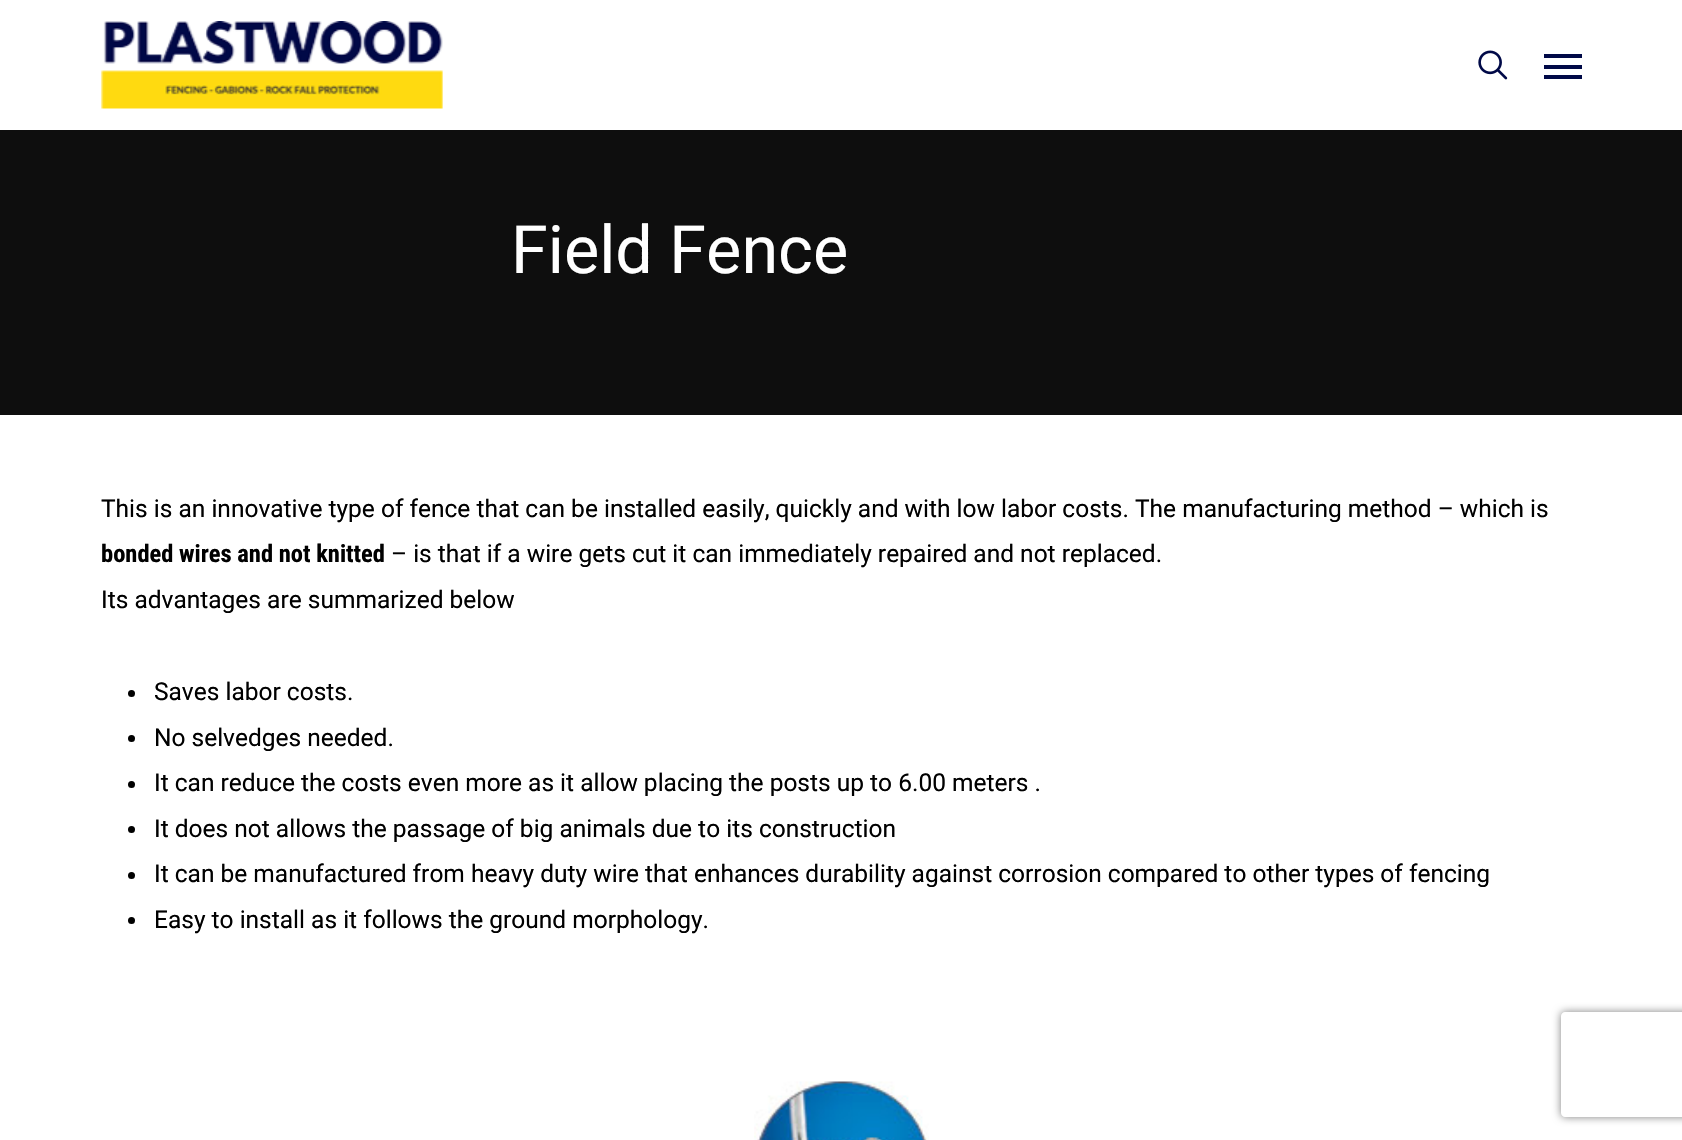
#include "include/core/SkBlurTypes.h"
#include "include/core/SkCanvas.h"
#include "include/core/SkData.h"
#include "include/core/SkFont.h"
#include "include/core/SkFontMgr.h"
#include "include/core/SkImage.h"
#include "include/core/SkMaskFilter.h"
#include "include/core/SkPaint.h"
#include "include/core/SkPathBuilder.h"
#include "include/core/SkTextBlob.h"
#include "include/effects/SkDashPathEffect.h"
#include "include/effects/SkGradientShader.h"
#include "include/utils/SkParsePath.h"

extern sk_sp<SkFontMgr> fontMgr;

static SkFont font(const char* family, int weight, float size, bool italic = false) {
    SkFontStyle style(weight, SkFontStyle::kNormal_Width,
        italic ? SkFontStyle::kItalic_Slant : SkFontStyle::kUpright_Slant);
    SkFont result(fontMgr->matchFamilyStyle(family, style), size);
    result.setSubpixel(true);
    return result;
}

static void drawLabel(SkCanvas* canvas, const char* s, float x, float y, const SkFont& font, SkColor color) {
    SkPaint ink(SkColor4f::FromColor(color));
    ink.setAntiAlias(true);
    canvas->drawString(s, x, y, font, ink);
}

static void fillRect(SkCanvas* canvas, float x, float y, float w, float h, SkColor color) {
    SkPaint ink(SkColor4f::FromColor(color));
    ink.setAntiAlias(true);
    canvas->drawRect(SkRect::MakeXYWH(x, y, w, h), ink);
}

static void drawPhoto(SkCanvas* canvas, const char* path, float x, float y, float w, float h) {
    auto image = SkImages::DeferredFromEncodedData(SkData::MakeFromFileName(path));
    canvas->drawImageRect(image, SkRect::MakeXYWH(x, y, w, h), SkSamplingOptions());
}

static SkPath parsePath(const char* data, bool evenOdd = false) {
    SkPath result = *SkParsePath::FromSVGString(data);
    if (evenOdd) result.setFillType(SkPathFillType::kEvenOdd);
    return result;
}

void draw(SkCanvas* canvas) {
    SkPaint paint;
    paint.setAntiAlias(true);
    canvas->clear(0xFFFFFFFF);
    drawPhoto(canvas, "assets/img1.png", 101, 21, 342, 88);
    drawPhoto(canvas, "assets/img2.png", 1478, 50, 30, 30);
    fillRect(canvas, 1544, 54, 38, 4, 0xFF000947);
    fillRect(canvas, 1544, 75, 38, 4, 0xFF000947);
    fillRect(canvas, 1544, 65, 38, 4, 0xFF000947);
    fillRect(canvas, 0, 130, 1682, 285, 0xFF0E0E0E);
    SkFont font1 = font("Roboto", 400, 66.5f);
    drawLabel(canvas, "Field Fence", 511, 273, font1, 0xFFFFFFFF);
    SkFont font2 = font("Roboto", 400, 24.5f);
    drawLabel(canvas, "This is an innovative type of fence that can be installed easily, quickly and with low labor costs. The manufacturing method – which is", 101, 517, font2, 0xFF000000);
    SkFont font3 = font("Roboto Condensed", 700, 24.5f);
    drawLabel(canvas, "bonded wires and not knitted", 101, 562, font3, 0xFF000000);
    drawLabel(canvas, "– is that if a wire gets cut it can immediately repaired and not replaced.", 391, 562, font2, 0xFF000000);
    drawLabel(canvas, "Its advantages are summarized below", 101, 608, font2, 0xFF000000);
    paint.setColor(0xFF000000);
    canvas->drawCircle(131.5f, 693.5f, 3.5f, paint);
    drawLabel(canvas, "Saves labor costs.", 154, 700, font2, 0xFF000000);
    canvas->drawCircle(131.5f, 738.5f, 3.5f, paint);
    drawLabel(canvas, "No selvedges needed.", 154, 746, font2, 0xFF000000);
    canvas->drawCircle(131.5f, 784.5f, 3.5f, paint);
    drawLabel(canvas, "It can reduce the costs even more as it allow placing the posts up to 6.00 meters .", 154, 791, font2, 0xFF000000);
    canvas->drawCircle(131.5f, 829.5f, 3.5f, paint);
    drawLabel(canvas, "It does not allows the passage of big animals due to its construction", 154, 837, font2, 0xFF000000);
    canvas->drawCircle(131.5f, 875.5f, 3.5f, paint);
    drawLabel(canvas, "It can be manufactured from heavy duty wire that enhances durability against corrosion compared to other types of fencing", 154, 882, font2, 0xFF000000);
    canvas->drawCircle(131.5f, 920.5f, 3.5f, paint);
    drawLabel(canvas, "Easy to install as it follows the ground morphology.", 154, 928, font2, 0xFF000000);
    drawPhoto(canvas, "assets/img3.png", 754, 1081, 175, 59);
    canvas->save();
    canvas->clipPath(parsePath("M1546 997H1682V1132H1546ZM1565 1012H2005C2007 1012 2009 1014 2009 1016V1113C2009 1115 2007 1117 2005 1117H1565C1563 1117 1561 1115 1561 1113V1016C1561 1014 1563 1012 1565 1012Z", true), true);
    paint.setColor(0xFF808080);
    paint.setMaskFilter(SkMaskFilter::MakeBlur(kNormal_SkBlurStyle, 4.5f));
    canvas->drawRoundRect(SkRect::MakeXYWH(1561, 1012, 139, 105), 4, 4, paint);
    paint.setMaskFilter(nullptr);
    canvas->restore();
}
